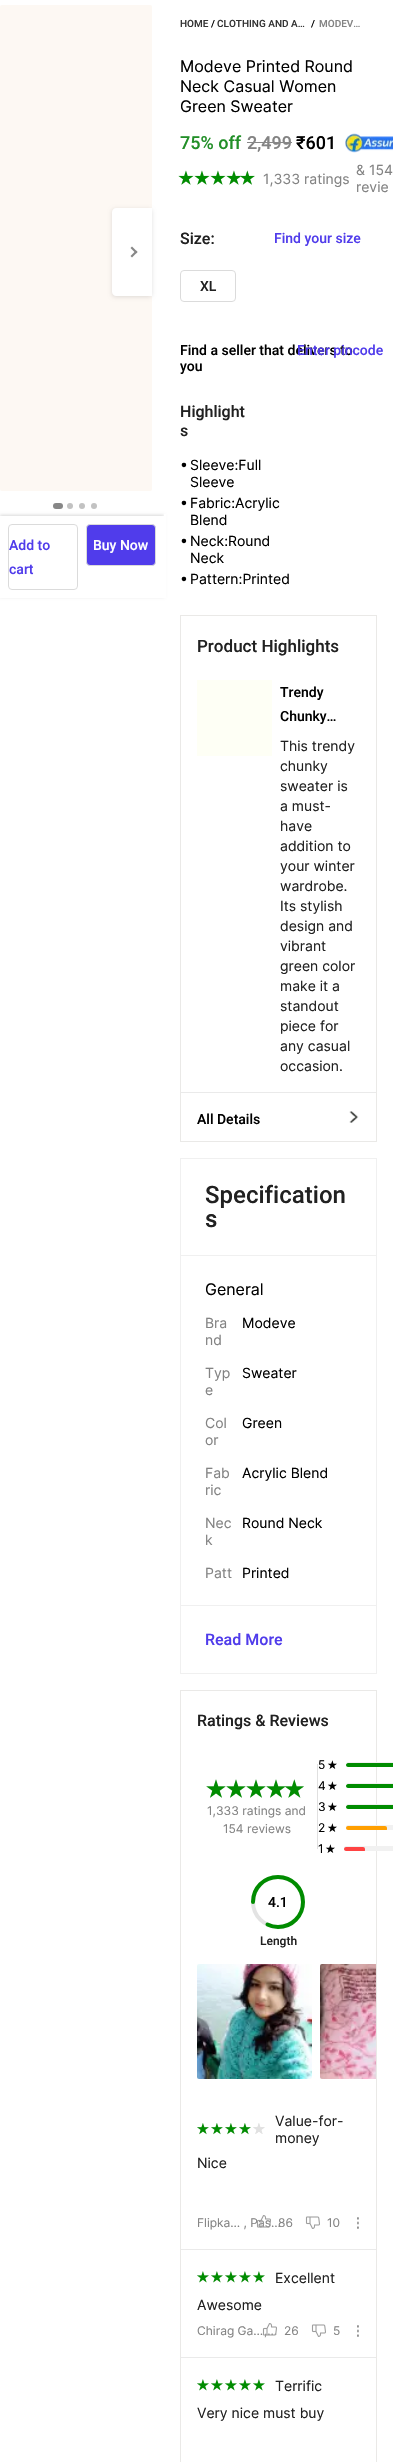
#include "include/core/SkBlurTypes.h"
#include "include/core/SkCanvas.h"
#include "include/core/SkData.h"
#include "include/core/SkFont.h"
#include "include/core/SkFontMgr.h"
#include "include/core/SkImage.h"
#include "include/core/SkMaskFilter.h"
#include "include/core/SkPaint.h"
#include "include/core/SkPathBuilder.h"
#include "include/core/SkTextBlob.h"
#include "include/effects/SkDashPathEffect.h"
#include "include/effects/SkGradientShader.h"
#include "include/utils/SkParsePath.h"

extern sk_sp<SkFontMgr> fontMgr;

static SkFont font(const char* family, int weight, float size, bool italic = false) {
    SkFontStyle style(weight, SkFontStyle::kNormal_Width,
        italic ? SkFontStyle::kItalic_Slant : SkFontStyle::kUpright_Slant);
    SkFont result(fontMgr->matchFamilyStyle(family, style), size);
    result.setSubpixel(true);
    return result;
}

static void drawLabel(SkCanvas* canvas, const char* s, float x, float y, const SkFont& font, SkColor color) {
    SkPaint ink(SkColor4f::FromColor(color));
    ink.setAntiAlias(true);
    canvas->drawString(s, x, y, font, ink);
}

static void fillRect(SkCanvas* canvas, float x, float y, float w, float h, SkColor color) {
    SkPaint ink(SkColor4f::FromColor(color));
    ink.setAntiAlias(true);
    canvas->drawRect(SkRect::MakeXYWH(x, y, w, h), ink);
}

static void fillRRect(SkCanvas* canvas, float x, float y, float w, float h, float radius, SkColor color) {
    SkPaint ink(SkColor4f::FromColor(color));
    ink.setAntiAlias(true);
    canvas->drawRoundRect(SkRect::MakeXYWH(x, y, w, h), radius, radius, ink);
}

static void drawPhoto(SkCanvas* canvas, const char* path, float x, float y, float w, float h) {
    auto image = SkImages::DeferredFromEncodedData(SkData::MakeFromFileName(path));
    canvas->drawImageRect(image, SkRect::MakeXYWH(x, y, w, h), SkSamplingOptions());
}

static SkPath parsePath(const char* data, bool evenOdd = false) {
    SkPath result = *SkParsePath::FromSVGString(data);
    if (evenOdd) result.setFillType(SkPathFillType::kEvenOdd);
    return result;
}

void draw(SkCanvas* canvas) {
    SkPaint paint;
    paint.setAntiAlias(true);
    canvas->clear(0xFFFFFFFF);
    fillRRect(canvas, 0, 5, 152, 486, 2, 0xFFFDF8F3);
    paint.setColor(0x1F000000);
    paint.setMaskFilter(SkMaskFilter::MakeBlur(kNormal_SkBlurStyle, 2));
    canvas->drawRoundRect(SkRect::MakeXYWH(112, 209, 40, 88), 4, 4, paint);
    paint.setMaskFilter(nullptr);
    paint.setColor(0xFFFFFFFF);
    canvas->drawPath(parsePath("M116 208H152V296H116C114 296 112 294 112 292V212C112 210 114 208 116 208Z"), paint);
    paint.setColor(0xFF878787);
    canvas->drawPath(parsePath("M132 246.5L137.5 252L136 253.5L130.5 248Z"), paint);
    canvas->drawPath(parsePath("M136 250.5L137.5 252L132 257.5L130.5 256Z"), paint);
    fillRRect(canvas, 53, 503, 10, 6, 3, 0xFF878787);
    paint.setColor(0xFFC2C2C2);
    canvas->drawCircle(70, 506, 3, paint);
    canvas->drawCircle(82, 506, 3, paint);
    canvas->drawCircle(94, 506, 3, paint);
    canvas->save();
    canvas->clipPath(parsePath("M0 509H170V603H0ZM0 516H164V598H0Z", true), true);
    paint.setColor(0x26000000);
    paint.setMaskFilter(SkMaskFilter::MakeBlur(kNormal_SkBlurStyle, 1.5f));
    canvas->drawRect(SkRect::MakeXYWH(0, 515, 164, 82), paint);
    paint.setMaskFilter(nullptr);
    canvas->restore();
    paint.setStroke(true);
    paint.setStrokeWidth(1);
    paint.setColor(0xFFDBDBDB);
    canvas->drawRoundRect(SkRect::MakeXYWH(8.5f, 524.5f, 69, 65), 3.5f, 3.5f, paint);
    SkFont font1 = font("Roboto", 500, 14);
    drawLabel(canvas, "Add to", 9, 550, font1, 0xFF503CEB);
    drawLabel(canvas, "cart", 9, 574, font1, 0xFF503CEB);
    paint.setStroke(false);
    paint.setColor(0xFF503CEB);
    canvas->drawRoundRect(SkRect::MakeXYWH(86.5f, 524.5f, 69, 41), 3.5f, 3.5f, paint);
    paint.setStroke(true);
    paint.setColor(0xFFDBDBDB);
    canvas->drawRoundRect(SkRect::MakeXYWH(86.5f, 524.5f, 69, 41), 3.5f, 3.5f, paint);
    drawLabel(canvas, "Buy Now", 93, 550, font1, 0xFFFFFFFF);
    SkFont font2 = font("Roboto", 500, 10);
    drawLabel(canvas, "HOME", 180, 27, font2, 0xFF333333);
    drawLabel(canvas, "/", 211, 27, font2, 0xFF000000);
    drawLabel(canvas, "CLOTHING AND A…", 217, 27, font2, 0xFF333333);
    drawLabel(canvas, "/", 311, 27, font2, 0xFF000000);
    drawLabel(canvas, "MODEV…", 319, 27, font2, 0xFF838383);
    SkFont font3 = font("Inter", 400, 16);
    drawLabel(canvas, "Modeve Printed Round", 180, 72, font3, 0xFF000000);
    drawLabel(canvas, "Neck Casual Women", 180, 92, font3, 0xFF000000);
    drawLabel(canvas, "Green Sweater", 180, 112, font3, 0xFF000000);
    SkFont font4 = font("Roboto", 500, 18);
    drawLabel(canvas, "75% off", 180, 149, font4, 0xFF228F28);
    drawLabel(canvas, "2,499", 247, 149, font4, 0xFF838383);
    fillRect(canvas, 247, 142, 45, 1, 0xFF878787);
    drawLabel(canvas, "₹601", 296, 149, font4, 0xFF000000);
    drawPhoto(canvas, "assets/img1.png", 345, 133, 48, 20);
    drawPhoto(canvas, "assets/img2.png", 178, 170, 16, 15);
    drawPhoto(canvas, "assets/img2.png", 194, 170, 16, 15);
    drawPhoto(canvas, "assets/img2.png", 210, 170, 16, 15);
    drawPhoto(canvas, "assets/img2.png", 226, 170, 16, 15);
    drawPhoto(canvas, "assets/img3.png", 240, 170, 15, 15);
    SkFont font5 = font("Inter", 400, 14);
    drawLabel(canvas, "1,333 ratings", 263, 184, font5, 0xFF838383);
    drawLabel(canvas, "& 154", 356, 175, font5, 0xFF838383);
    drawLabel(canvas, "revie", 356, 192, font5, 0xFF838383);
    SkFont font6 = font("Roboto", 500, 16);
    drawLabel(canvas, "Size:", 180, 244, font6, 0xFF212121);
    drawLabel(canvas, "Find your size", 274, 243, font1, 0xFF503CEB);
    canvas->drawRoundRect(SkRect::MakeXYWH(180.5f, 270.5f, 55, 31), 3.5f, 3.5f, paint);
    drawLabel(canvas, "XL", 200, 291, font1, 0xFF212121);
    drawLabel(canvas, "Find a seller that delivers to", 180, 355, font1, 0xFF000000);
    drawLabel(canvas, "you", 180, 371, font1, 0xFF000000);
    drawLabel(canvas, "Enter pincode", 297, 355, font1, 0xFF503CEB);
    fillRect(canvas, 164, 514, 2, 84, 0xFFFFFFFF);
    drawLabel(canvas, "Highlight", 180, 417, font6, 0xFF212121);
    drawLabel(canvas, "s", 180, 436, font6, 0xFF212121);
    drawLabel(canvas, "•", 180, 469, font5, 0xFF000000);
    drawLabel(canvas, "Sleeve:Full", 190, 470, font5, 0xFF000000);
    drawLabel(canvas, "Sleeve", 190, 487, font5, 0xFF000000);
    drawLabel(canvas, "•", 180, 507, font5, 0xFF000000);
    drawLabel(canvas, "Fabric:Acrylic", 190, 508, font5, 0xFF000000);
    drawLabel(canvas, "Blend", 190, 525, font5, 0xFF000000);
    drawLabel(canvas, "•", 180, 545, font5, 0xFF000000);
    drawLabel(canvas, "Neck:Round", 190, 546, font5, 0xFF000000);
    drawLabel(canvas, "Neck", 190, 563, font5, 0xFF000000);
    drawLabel(canvas, "•", 180, 583, font5, 0xFF000000);
    drawLabel(canvas, "Pattern:Printed", 190, 584, font5, 0xFF000000);
    paint.setColor(0xFFEAE9E7);
    canvas->drawRect(SkRect::MakeXYWH(180.5f, 615.5f, 196, 526), paint);
    SkFont font7 = font("Roboto", 500, 17);
    drawLabel(canvas, "Product Highlights", 197, 652, font7, 0xFF212121);
    fillRect(canvas, 197, 680, 75, 76, 0xFFFEFFF5);
    drawLabel(canvas, "Trendy", 280, 697, font1, 0xFF000000);
    drawLabel(canvas, "Chunky…", 280, 721, font1, 0xFF000000);
    drawLabel(canvas, "This trendy", 280, 751, font5, 0xFF212121);
    drawLabel(canvas, "chunky", 280, 771, font5, 0xFF212121);
    drawLabel(canvas, "sweater is", 280, 791, font5, 0xFF212121);
    drawLabel(canvas, "a must-", 280, 811, font5, 0xFF212121);
    drawLabel(canvas, "have", 280, 831, font5, 0xFF212121);
    drawLabel(canvas, "addition to", 280, 851, font5, 0xFF212121);
    drawLabel(canvas, "your winter", 280, 871, font5, 0xFF212121);
    drawLabel(canvas, "wardrobe.", 280, 891, font5, 0xFF212121);
    drawLabel(canvas, "Its stylish", 280, 911, font5, 0xFF212121);
    drawLabel(canvas, "design and", 280, 931, font5, 0xFF212121);
    drawLabel(canvas, "vibrant", 280, 951, font5, 0xFF212121);
    drawLabel(canvas, "green color", 280, 971, font5, 0xFF212121);
    drawLabel(canvas, "make it a", 280, 991, font5, 0xFF212121);
    drawLabel(canvas, "standout", 280, 1011, font5, 0xFF212121);
    drawLabel(canvas, "piece for", 280, 1031, font5, 0xFF212121);
    drawLabel(canvas, "any casual", 280, 1051, font5, 0xFF212121);
    drawLabel(canvas, "occasion.", 280, 1071, font5, 0xFF212121);
    fillRect(canvas, 181, 1092, 195, 1, 0xFFEAEAEA);
    drawLabel(canvas, "All Details", 197, 1124, font1, 0xFF000000);
    drawPhoto(canvas, "assets/img4.png", 349, 1111, 10, 12);
    paint.setColor(0xFFF0F0F0);
    canvas->drawRect(SkRect::MakeXYWH(180.5f, 1158.5f, 196, 515), paint);
    SkFont font8 = font("Roboto", 500, 24);
    drawLabel(canvas, "Specification", 205, 1203, font8, 0xFF212121);
    drawLabel(canvas, "s", 205, 1227, font8, 0xFF212121);
    fillRect(canvas, 181, 1255, 195, 1, 0xFFF0F0F0);
    drawLabel(canvas, "General", 205, 1295, font3, 0xFF000000);
    drawLabel(canvas, "Bra", 205, 1328, font5, 0xFF838383);
    drawLabel(canvas, "nd", 205, 1345, font5, 0xFF838383);
    drawLabel(canvas, "Modeve", 242, 1328, font5, 0xFF000000);
    drawLabel(canvas, "Typ", 205, 1378, font5, 0xFF838383);
    drawLabel(canvas, "e", 205, 1395, font5, 0xFF838383);
    drawLabel(canvas, "Sweater", 242, 1378, font5, 0xFF000000);
    drawLabel(canvas, "Col", 205, 1428, font5, 0xFF838383);
    drawLabel(canvas, "or", 205, 1445, font5, 0xFF838383);
    drawLabel(canvas, "Green", 242, 1428, font5, 0xFF000000);
    drawLabel(canvas, "Fab", 205, 1478, font5, 0xFF838383);
    drawLabel(canvas, "ric", 205, 1495, font5, 0xFF838383);
    drawLabel(canvas, "Acrylic Blend", 242, 1478, font5, 0xFF000000);
    drawLabel(canvas, "Nec", 205, 1528, font5, 0xFF838383);
    drawLabel(canvas, "k", 205, 1545, font5, 0xFF838383);
    drawLabel(canvas, "Round Neck", 242, 1528, font5, 0xFF000000);
    drawLabel(canvas, "Patt", 205, 1578, font5, 0xFF838383);
    drawLabel(canvas, "Printed", 242, 1578, font5, 0xFF000000);
    fillRect(canvas, 181, 1605, 195, 1, 0xFFF0F0F0);
    drawLabel(canvas, "Read More", 205, 1645, font6, 0xFF503CEB);
    fillRect(canvas, 180, 1690, 197, 1, 0xFFEAE9E7);
    fillRect(canvas, 376, 1690, 1, 772, 0xFFEAE9E7);
    fillRect(canvas, 180, 1690, 1, 772, 0xFFEAE9E7);
    drawLabel(canvas, "Ratings & Reviews", 197, 1726, font6, 0xFF212121);
    drawPhoto(canvas, "assets/img5.png", 206, 1779, 20, 19);
    drawPhoto(canvas, "assets/img5.png", 226, 1779, 20, 19);
    drawPhoto(canvas, "assets/img5.png", 246, 1779, 20, 19);
    drawPhoto(canvas, "assets/img5.png", 266, 1779, 20, 19);
    drawPhoto(canvas, "assets/img6.png", 284, 1779, 20, 19);
    SkFont font9 = font("Inter", 400, 12);
    drawLabel(canvas, "1,333 ratings and", 207, 1815, font9, 0xFF838383);
    drawLabel(canvas, "154 reviews", 223, 1833, font9, 0xFF838383);
    fillRect(canvas, 317, 1764, 1, 85, 0xFFE0E0E0);
    drawLabel(canvas, "5", 318, 1769, font9, 0xFF000000);
    SkFont font10 = font("DejaVu Sans", 400, 12);
    drawLabel(canvas, "★", 327, 1769, font10, 0xFF000000);
    paint.setStroke(false);
    paint.setColor(0xFFF1F1F1);
    canvas->drawPath(parsePath("M348 1762H393V1767H348C347 1767 346 1766 346 1765V1764C346 1763 347 1762 348 1762Z"), paint);
    canvas->save();
    canvas->clipPath(parsePath("M348 1762H447C448 1762 449 1763 449 1764V1765C449 1766 448 1767 447 1767H348C347 1767 346 1766 346 1765V1764C346 1763 347 1762 348 1762Z"), true);
    paint.setColor(0xFF008C00);
    canvas->drawPath(parsePath("M348 1763H393V1768H348C347 1768 346 1767 346 1766V1765C346 1764 347 1763 348 1763Z"), paint);
    canvas->restore();
    drawLabel(canvas, "4", 318, 1790, font9, 0xFF000000);
    drawLabel(canvas, "★", 327, 1790, font10, 0xFF000000);
    paint.setColor(0xFFF1F1F1);
    canvas->drawPath(parsePath("M348 1783H393V1788H348C347 1788 346 1787 346 1786V1785C346 1784 347 1783 348 1783Z"), paint);
    canvas->save();
    canvas->clipPath(parsePath("M348 1783H447C448 1783 449 1784 449 1785V1786C449 1787 448 1788 447 1788H348C347 1788 346 1787 346 1786V1785C346 1784 347 1783 348 1783Z"), true);
    paint.setColor(0xFF008C00);
    canvas->drawPath(parsePath("M348 1784H393V1789H348C347 1789 346 1788 346 1787V1786C346 1785 347 1784 348 1784Z"), paint);
    canvas->restore();
    drawLabel(canvas, "3", 318, 1811, font9, 0xFF000000);
    drawLabel(canvas, "★", 327, 1811, font10, 0xFF000000);
    paint.setColor(0xFFF1F1F1);
    canvas->drawPath(parsePath("M348 1804H393V1809H348C347 1809 346 1808 346 1807V1806C346 1805 347 1804 348 1804Z"), paint);
    canvas->save();
    canvas->clipPath(parsePath("M348 1804H447C448 1804 449 1805 449 1806V1807C449 1808 448 1809 447 1809H348C347 1809 346 1808 346 1807V1806C346 1805 347 1804 348 1804Z"), true);
    paint.setColor(0xFF008C00);
    canvas->drawPath(parsePath("M348 1805H393V1810H348C347 1810 346 1809 346 1808V1807C346 1806 347 1805 348 1805Z"), paint);
    canvas->restore();
    drawLabel(canvas, "2", 318, 1832, font9, 0xFF000000);
    drawLabel(canvas, "★", 327, 1832, font10, 0xFF000000);
    paint.setColor(0xFFF1F1F1);
    canvas->drawPath(parsePath("M348 1825H393V1830H348C347 1830 346 1829 346 1828V1827C346 1826 347 1825 348 1825Z"), paint);
    canvas->save();
    canvas->clipPath(parsePath("M348 1825H447C448 1825 449 1826 449 1827V1828C449 1829 448 1830 447 1830H348C347 1830 346 1829 346 1828V1827C346 1826 347 1825 348 1825Z"), true);
    fillRRect(canvas, 346, 1826, 41, 5, 2, 0xFFFF9F00);
    canvas->restore();
    drawLabel(canvas, "1", 318, 1853, font9, 0xFF000000);
    drawLabel(canvas, "★", 325, 1853, font10, 0xFF000000);
    canvas->drawPath(parsePath("M346 1846H393V1851H346C345 1851 344 1850 344 1849V1848C344 1847 345 1846 346 1846Z"), paint);
    canvas->save();
    canvas->clipPath(parsePath("M346 1846H445C446 1846 447 1847 447 1848V1849C447 1850 446 1851 445 1851H346C345 1851 344 1850 344 1849V1848C344 1847 345 1846 346 1846Z"), true);
    fillRRect(canvas, 344, 1847, 21, 5, 2, 0xFFFF4343);
    canvas->restore();
    paint.setStroke(true);
    paint.setStrokeWidth(4);
    paint.setColor(0xFFE3E3E3);
    canvas->drawCircle(278, 1902, 25, paint);
    paint.setStrokeCap(SkPaint::kRound_Cap);
    paint.setStrokeJoin(SkPaint::kRound_Join);
    paint.setColor(0xFF008C00);
    canvas->drawPath(parsePath("M253 1902C253 1888 264 1877 278 1877C292 1877 303 1888 303 1902C303 1916 292 1927 278 1927C274 1927 270.5 1926 267.5 1924.5"), paint);
    drawLabel(canvas, "4.1", 268, 1907, font1, 0xFF000000);
    SkFont font11 = font("Roboto", 500, 12);
    drawLabel(canvas, "Length", 260, 1945, font11, 0xFF212121);
    drawPhoto(canvas, "assets/img7.png", 197, 1964, 115, 115);
    drawPhoto(canvas, "assets/img8.png", 320, 1964, 56, 115);
    drawPhoto(canvas, "assets/img9.png", 197, 2123, 12, 12);
    drawPhoto(canvas, "assets/img9.png", 211, 2123, 12, 12);
    drawPhoto(canvas, "assets/img9.png", 225, 2123, 12, 12);
    drawPhoto(canvas, "assets/img9.png", 239, 2123, 12, 12);
    drawPhoto(canvas, "assets/img10.png", 253, 2123, 12, 11);
    drawLabel(canvas, "Value-for-", 275, 2126, font5, 0xFF212121);
    drawLabel(canvas, "money", 275, 2143, font5, 0xFF212121);
    drawLabel(canvas, "Nice", 197, 2168, font5, 0xFF212121);
    drawLabel(canvas, "Flipka… , Pas…", 197, 2227, font9, 0xFF838383);
    drawPhoto(canvas, "assets/img11.png", 256, 2215, 15, 13);
    drawLabel(canvas, "86", 278, 2227, font9, 0xFF838383);
    drawPhoto(canvas, "assets/img12.png", 305, 2216, 15, 13);
    drawLabel(canvas, "10", 327, 2227, font9, 0xFF838383);
    drawPhoto(canvas, "assets/img13.png", 357, 2217, 2, 12);
    fillRect(canvas, 181, 2249, 195, 1, 0xFFEAEAEA);
    drawPhoto(canvas, "assets/img14.png", 197, 2271, 12, 12);
    drawPhoto(canvas, "assets/img14.png", 211, 2271, 12, 12);
    drawPhoto(canvas, "assets/img14.png", 225, 2271, 12, 12);
    drawPhoto(canvas, "assets/img14.png", 239, 2271, 12, 12);
    drawPhoto(canvas, "assets/img14.png", 253, 2271, 12, 12);
    drawLabel(canvas, "Excellent", 275, 2283, font5, 0xFF212121);
    drawLabel(canvas, "Awesome", 197, 2310, font5, 0xFF212121);
    drawLabel(canvas, "Chirag Ga…", 197, 2335, font9, 0xFF838383);
    drawLabel(canvas, ",…", 264, 2335, font9, 0xFF838383);
    drawPhoto(canvas, "assets/img15.png", 262, 2323, 15, 13);
    drawLabel(canvas, "26", 284, 2335, font9, 0xFF838383);
    drawPhoto(canvas, "assets/img12.png", 311, 2324, 15, 13);
    drawLabel(canvas, "5", 333, 2335, font9, 0xFF838383);
    drawPhoto(canvas, "assets/img16.png", 357, 2325, 2, 12);
    fillRect(canvas, 181, 2357, 195, 1, 0xFFEAEAEA);
    drawPhoto(canvas, "assets/img14.png", 197, 2379, 12, 12);
    drawPhoto(canvas, "assets/img14.png", 211, 2379, 12, 12);
    drawPhoto(canvas, "assets/img14.png", 225, 2379, 12, 12);
    drawPhoto(canvas, "assets/img14.png", 239, 2379, 12, 12);
    drawPhoto(canvas, "assets/img14.png", 253, 2379, 12, 12);
    drawLabel(canvas, "Terrific", 275, 2391, font5, 0xFF212121);
    drawLabel(canvas, "Very nice must buy", 197, 2418, font5, 0xFF212121);
}
